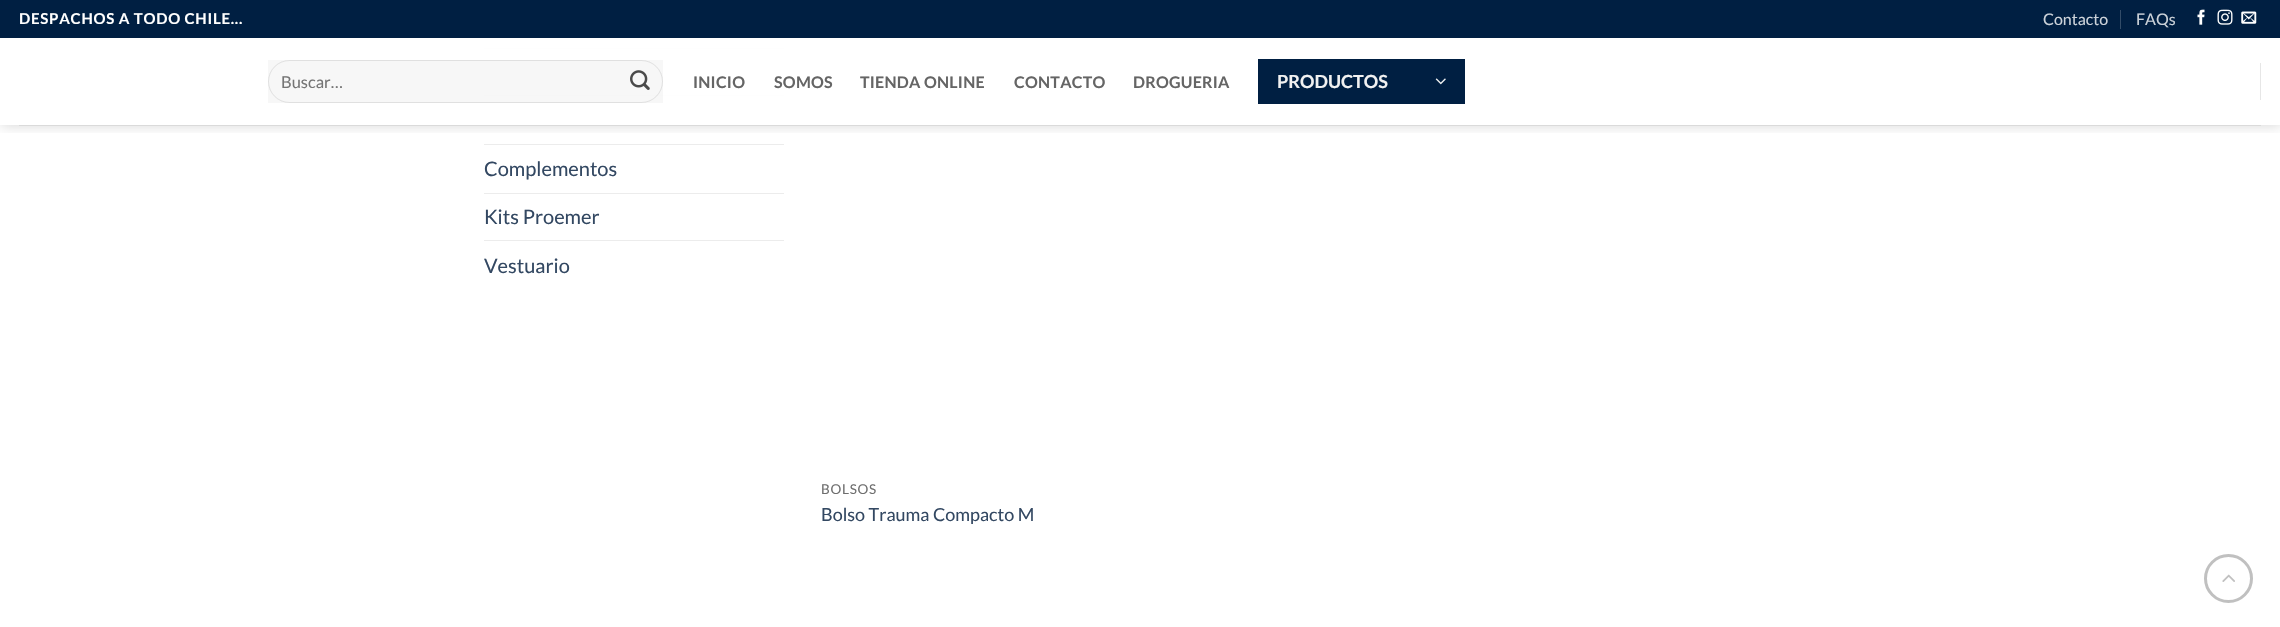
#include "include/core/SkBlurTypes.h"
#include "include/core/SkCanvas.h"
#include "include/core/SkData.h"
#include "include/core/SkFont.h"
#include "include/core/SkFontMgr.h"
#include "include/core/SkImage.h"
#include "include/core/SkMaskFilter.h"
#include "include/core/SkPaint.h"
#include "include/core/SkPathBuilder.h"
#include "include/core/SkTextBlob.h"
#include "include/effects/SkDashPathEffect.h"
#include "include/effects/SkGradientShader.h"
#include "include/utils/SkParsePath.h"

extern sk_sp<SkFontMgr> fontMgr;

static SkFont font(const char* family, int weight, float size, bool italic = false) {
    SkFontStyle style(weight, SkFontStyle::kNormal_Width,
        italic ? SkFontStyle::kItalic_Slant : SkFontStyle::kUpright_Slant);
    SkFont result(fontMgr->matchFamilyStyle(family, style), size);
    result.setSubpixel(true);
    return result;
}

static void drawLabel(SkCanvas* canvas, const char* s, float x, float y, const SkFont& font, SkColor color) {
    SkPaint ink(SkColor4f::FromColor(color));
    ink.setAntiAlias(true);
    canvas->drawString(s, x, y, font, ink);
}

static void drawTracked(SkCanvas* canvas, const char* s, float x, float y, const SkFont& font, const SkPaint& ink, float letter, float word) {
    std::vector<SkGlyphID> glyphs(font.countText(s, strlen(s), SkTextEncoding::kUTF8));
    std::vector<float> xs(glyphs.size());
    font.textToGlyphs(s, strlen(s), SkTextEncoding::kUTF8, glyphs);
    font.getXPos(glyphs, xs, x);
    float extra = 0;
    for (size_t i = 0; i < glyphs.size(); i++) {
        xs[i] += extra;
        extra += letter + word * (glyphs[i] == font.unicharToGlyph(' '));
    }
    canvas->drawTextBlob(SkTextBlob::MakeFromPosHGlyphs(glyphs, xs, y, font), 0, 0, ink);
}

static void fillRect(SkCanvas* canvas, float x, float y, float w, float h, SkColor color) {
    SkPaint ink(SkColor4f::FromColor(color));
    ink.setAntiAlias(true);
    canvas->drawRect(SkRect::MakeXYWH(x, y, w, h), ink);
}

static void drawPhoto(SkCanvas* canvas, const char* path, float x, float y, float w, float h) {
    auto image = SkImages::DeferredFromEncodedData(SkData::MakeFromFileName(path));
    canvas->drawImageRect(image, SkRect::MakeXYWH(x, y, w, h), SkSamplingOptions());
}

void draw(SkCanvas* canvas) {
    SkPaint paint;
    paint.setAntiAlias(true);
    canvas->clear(0xFFFFFFFF);
    fillRect(canvas, 484, 48, 300, 1, 0xFFECECEC);
    fillRect(canvas, 484, 95, 300, 1, 0xFFECECEC);
    fillRect(canvas, 484, 144, 300, 1, 0xFFECECEC);
    canvas->save();
    canvas->clipRect(SkRect::MakeXYWH(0, 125, 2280, 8));
    paint.setColor(0x26000000);
    paint.setMaskFilter(SkMaskFilter::MakeBlur(kNormal_SkBlurStyle, 6));
    canvas->drawRect(SkRect::MakeXYWH(1, 1, 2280, 125), paint);
    paint.setMaskFilter(nullptr);
    canvas->restore();
    fillRect(canvas, 0, 0, 2280, 38, 0xFF001F42);
    SkFont font1 = font("Lato", 700, 15);
    paint.setColor(0xFFFFFFFF);
    drawTracked(canvas, "DESPACHOS A TODO CHILE...", 19, 24, font1, paint, 0.75f, 0);
    SkFont font2 = font("Lato", 400, 16);
    drawLabel(canvas, "Contacto", 2043, 25, font2, 0xFFCCD2D9);
    fillRect(canvas, 2120, 10, 1, 19, 0xFF334C68);
    drawLabel(canvas, "FAQs", 2136, 25, font2, 0xFFCCD2D9);
    drawPhoto(canvas, "assets/img1.png", 2197, 9, 8, 16);
    drawPhoto(canvas, "assets/img2.png", 2217, 9, 16, 16);
    drawPhoto(canvas, "assets/img3.png", 2241, 11, 16, 13);
    fillRect(canvas, 484, 48, 300, 48, 0xE6FFFFFF);
    fillRect(canvas, 268, 60, 395, 43, 0x08000000);
    paint.setStroke(true);
    paint.setStrokeWidth(1);
    paint.setColor(0x17000000);
    canvas->drawRoundRect(SkRect::MakeXYWH(268.5f, 60.5f, 394, 42), 21, 21, paint);
    SkFont font3 = font("Lato", 400, 16.5f);
    drawLabel(canvas, "Buscar…", 281, 88, font3, 0xFF757575);
    drawPhoto(canvas, "assets/img4.png", 630, 70, 20, 20);
    SkFont font4 = font("Lato", 700, 16);
    paint.setStroke(false);
    paint.setColor(0xFF656565);
    drawTracked(canvas, "INICIO", 693, 88, font4, paint, 0.25f, 0);
    drawTracked(canvas, "SOMOS", 774, 88, font4, paint, 0.25f, 0);
    drawTracked(canvas, "TIENDA ONLINE", 860, 88, font4, paint, 0.25f, 0);
    drawTracked(canvas, "CONTACTO", 1014, 88, font4, paint, 0.25f, 0);
    drawTracked(canvas, "DROGUERIA", 1133, 88, font4, paint, 0.25f, 0);
    fillRect(canvas, 1258, 59, 207, 45, 0xFF001F42);
    SkFont font5 = font("Lato", 700, 18);
    drawLabel(canvas, "PRODUCTOS", 1277, 88, font5, 0xFFF1F1F1);
    drawPhoto(canvas, "assets/img5.png", 1435, 78, 11, 7);
    fillRect(canvas, 2260, 63, 1, 37, 0xFFE6E6E6);
    fillRect(canvas, 19, 125, 2242, 1, 0x1A4A4A4A);
    SkFont font6 = font("Lato", 400, 20);
    drawLabel(canvas, "Complementos", 484, 176, font6, 0xFF334862);
    fillRect(canvas, 484, 193, 300, 1, 0xFFECECEC);
    drawLabel(canvas, "Kits Proemer", 484, 224, font6, 0xFF334862);
    fillRect(canvas, 484, 240, 300, 1, 0xFFECECEC);
    drawLabel(canvas, "Vestuario", 484, 273, font6, 0xFF334862);
    SkFont font7 = font("Lato", 400, 13.5f);
    paint.setColor(0xFF6E6E6E);
    drawTracked(canvas, "BOLSOS", 821, 494, font7, paint, 0.75f, 0);
    SkFont font8 = font("Lato", 400, 18);
    drawLabel(canvas, "Bolso Trauma Compacto M", 821, 521, font8, 0xFF334862);
    paint.setStroke(true);
    paint.setStrokeWidth(3);
    paint.setColor(0xFFC0C0C0);
    canvas->drawCircle(2228.5f, 578.5f, 23, paint);
    drawPhoto(canvas, "assets/img6.png", 2222, 574, 13, 8);
}
